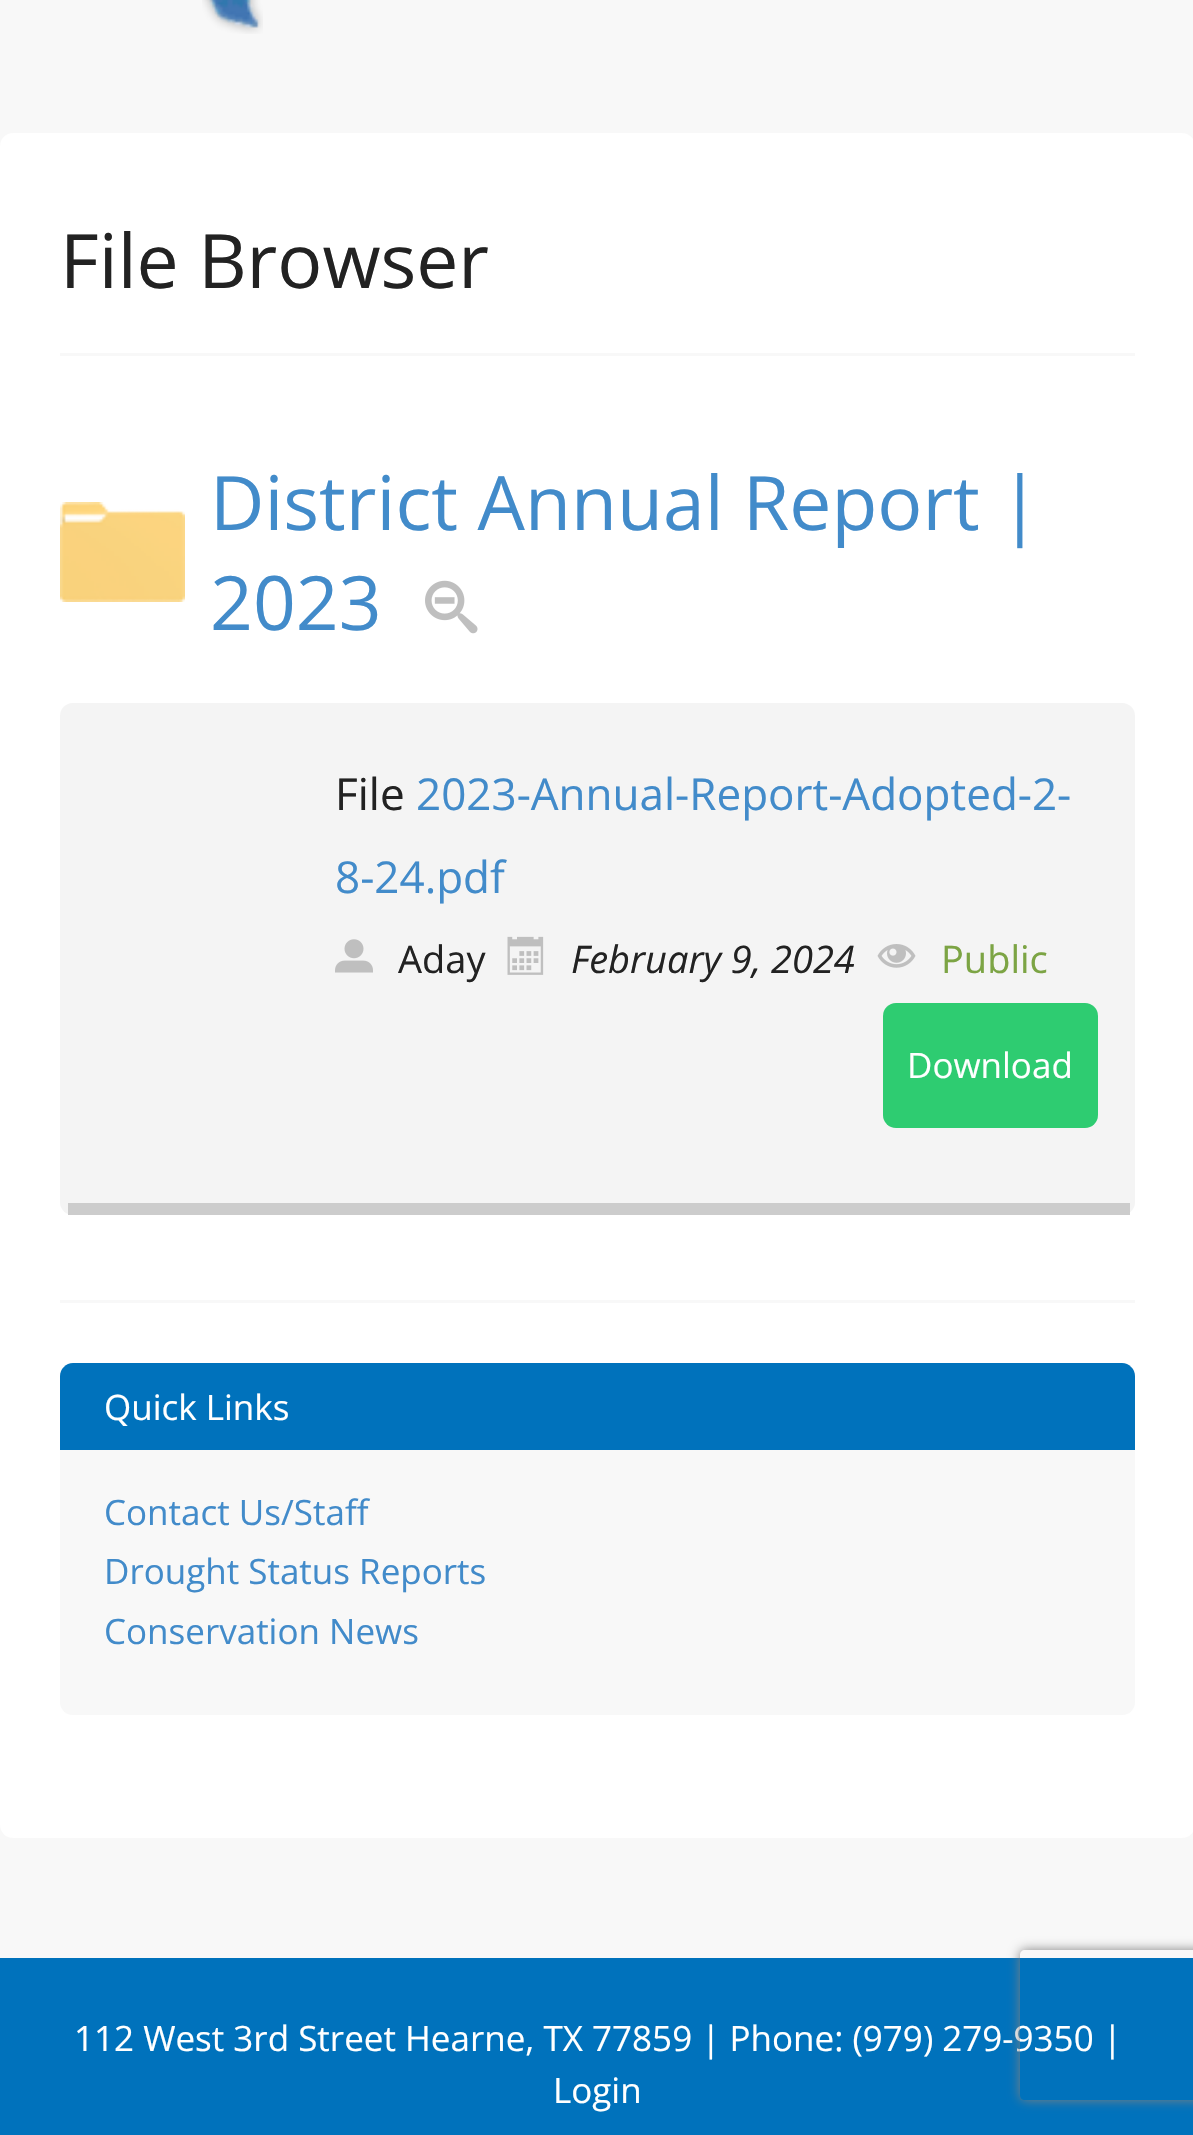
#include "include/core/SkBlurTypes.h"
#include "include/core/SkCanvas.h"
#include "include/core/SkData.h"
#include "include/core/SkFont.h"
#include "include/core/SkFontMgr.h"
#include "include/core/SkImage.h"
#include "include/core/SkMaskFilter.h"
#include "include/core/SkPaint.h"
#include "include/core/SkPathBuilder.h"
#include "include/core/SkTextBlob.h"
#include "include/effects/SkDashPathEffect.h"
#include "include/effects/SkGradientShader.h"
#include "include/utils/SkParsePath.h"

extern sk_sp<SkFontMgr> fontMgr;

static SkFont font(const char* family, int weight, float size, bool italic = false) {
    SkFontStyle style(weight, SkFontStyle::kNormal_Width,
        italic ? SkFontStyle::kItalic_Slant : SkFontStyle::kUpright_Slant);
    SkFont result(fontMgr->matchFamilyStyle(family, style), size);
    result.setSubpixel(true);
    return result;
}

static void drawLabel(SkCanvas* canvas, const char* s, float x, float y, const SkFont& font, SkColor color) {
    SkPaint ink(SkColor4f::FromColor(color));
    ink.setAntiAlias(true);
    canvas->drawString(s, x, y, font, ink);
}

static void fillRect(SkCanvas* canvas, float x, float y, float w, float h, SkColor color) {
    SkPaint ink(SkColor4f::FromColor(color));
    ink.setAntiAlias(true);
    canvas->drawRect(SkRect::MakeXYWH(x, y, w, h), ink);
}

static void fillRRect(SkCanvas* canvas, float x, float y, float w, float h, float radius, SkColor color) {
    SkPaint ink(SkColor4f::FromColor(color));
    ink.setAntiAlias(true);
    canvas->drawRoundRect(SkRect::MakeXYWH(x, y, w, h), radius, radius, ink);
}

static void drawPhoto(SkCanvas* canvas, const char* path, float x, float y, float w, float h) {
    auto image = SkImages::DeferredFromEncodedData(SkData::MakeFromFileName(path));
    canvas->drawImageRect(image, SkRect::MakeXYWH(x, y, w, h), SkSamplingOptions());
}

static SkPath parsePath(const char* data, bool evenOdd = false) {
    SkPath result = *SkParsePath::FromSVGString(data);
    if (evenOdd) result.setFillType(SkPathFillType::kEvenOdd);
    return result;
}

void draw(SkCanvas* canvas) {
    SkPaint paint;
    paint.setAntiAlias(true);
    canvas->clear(0xFFF8F8F8);
    drawPhoto(canvas, "assets/img1.png", 202, 0, 61, 34);
    fillRRect(canvas, 0, 133, 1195, 1705, 13, 0xFFFFFFFF);
    fillRect(canvas, 60, 353, 1075, 3, 0xFFF8F8F8);
    SkFont font1 = font("Open Sans", 400, 75);
    drawLabel(canvas, "File Browser", 60, 288, font1, 0xFF222222);
    fillRect(canvas, 60, 1300, 1075, 3, 0xFFF8F8F8);
    drawPhoto(canvas, "assets/img2.png", 60, 502, 125, 100);
    drawLabel(canvas, "District Annual Report |", 210, 530, font1, 0xFF428BCA);
    drawLabel(canvas, "2023", 210, 630, font1, 0xFF428BCA);
    drawPhoto(canvas, "assets/img3.png", 425, 580, 53, 54);
    fillRRect(canvas, 60, 703, 1075, 512, 13, 0xFFF4F4F4);
    fillRect(canvas, 68, 1203, 1062, 12, 0xFFCCCCCC);
    SkFont font2 = font("Open Sans", 400, 44);
    drawLabel(canvas, "File", 335, 810, font2, 0xFF222222);
    drawLabel(canvas, "2023-Annual-Report-Adopted-2-", 416, 810, font2, 0xFF428BCA);
    drawLabel(canvas, "8-24.pdf", 335, 893, font2, 0xFF428BCA);
    drawPhoto(canvas, "assets/img4.png", 335, 939, 38, 34);
    SkFont font3 = font("Open Sans", 400, 38);
    drawLabel(canvas, "Aday", 398, 973, font3, 0xFF222222);
    drawPhoto(canvas, "assets/img5.png", 507, 936, 37, 39);
    SkFont font4 = font("Open Sans", 400, 38, true);
    drawLabel(canvas, "February 9, 2024", 571, 973, font4, 0xFF222222);
    drawPhoto(canvas, "assets/img6.png", 877, 944, 39, 24);
    drawLabel(canvas, "Public", 941, 973, font3, 0xFF7CA444);
    fillRRect(canvas, 883, 1003, 215, 125, 13, 0xFF2ECC71);
    SkFont font5 = font("Open Sans", 400, 35);
    drawLabel(canvas, "Download", 907, 1078, font5, 0xFFFFFFFF);
    fillRRect(canvas, 60, 1363, 1075, 352, 13, 0xFFF8F8F8);
    paint.setColor(0xFF0072BC);
    canvas->drawPath(parsePath("M73 1363H1122C1129 1363 1135 1369 1135 1376V1450H60V1376C60 1369 66 1363 73 1363Z"), paint);
    drawLabel(canvas, "Quick Links", 104, 1420, font5, 0xFFFFFFFF);
    drawLabel(canvas, "Contact Us/Staff", 104, 1525, font5, 0xFF428BCA);
    drawLabel(canvas, "Drought Status Reports", 104, 1584, font5, 0xFF428BCA);
    drawLabel(canvas, "Conservation News", 104, 1644, font5, 0xFF428BCA);
    fillRect(canvas, 0, 1958, 1193, 177, 0xFF0072BC);
    drawLabel(canvas, "112 West 3rd Street Hearne, TX 77859 | Phone: (979) 279-9350 |", 74, 2051, font5, 0xFFFFFFFF);
    drawLabel(canvas, "Login", 553, 2103, font5, 0xFFFFFFFF);
    canvas->save();
    canvas->clipPath(parsePath("M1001 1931H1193V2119H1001ZM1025 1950H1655C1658 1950 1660 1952 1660 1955V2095C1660 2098 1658 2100 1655 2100H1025C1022 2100 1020 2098 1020 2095V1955C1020 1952 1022 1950 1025 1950Z", true), true);
    paint.setColor(0xFF808080);
    paint.setMaskFilter(SkMaskFilter::MakeBlur(kNormal_SkBlurStyle, 6));
    canvas->drawRoundRect(SkRect::MakeXYWH(1020, 1950, 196, 150), 5, 5, paint);
    paint.setMaskFilter(nullptr);
    canvas->restore();
}
